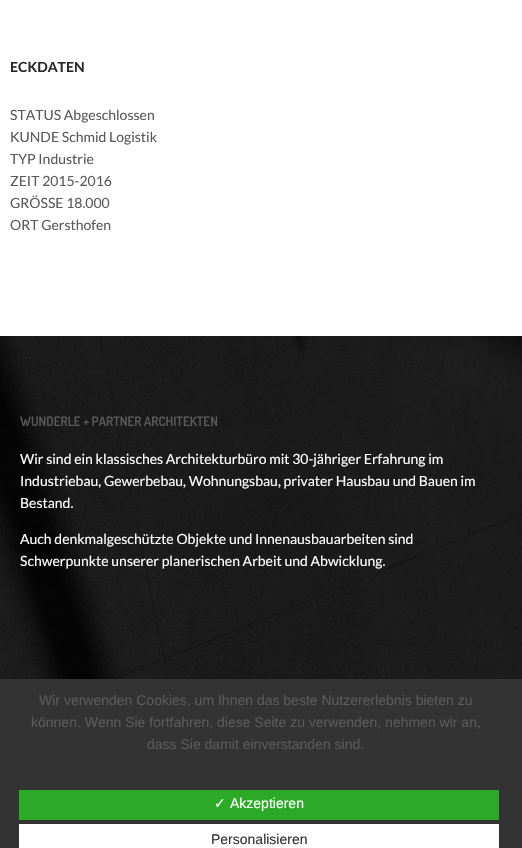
#include "include/core/SkBlurTypes.h"
#include "include/core/SkCanvas.h"
#include "include/core/SkData.h"
#include "include/core/SkFont.h"
#include "include/core/SkFontMgr.h"
#include "include/core/SkImage.h"
#include "include/core/SkMaskFilter.h"
#include "include/core/SkPaint.h"
#include "include/core/SkPathBuilder.h"
#include "include/core/SkTextBlob.h"
#include "include/effects/SkDashPathEffect.h"
#include "include/effects/SkGradientShader.h"
#include "include/utils/SkParsePath.h"

extern sk_sp<SkFontMgr> fontMgr;

static SkFont font(const char* family, int weight, float size, bool italic = false) {
    SkFontStyle style(weight, SkFontStyle::kNormal_Width,
        italic ? SkFontStyle::kItalic_Slant : SkFontStyle::kUpright_Slant);
    SkFont result(fontMgr->matchFamilyStyle(family, style), size);
    result.setSubpixel(true);
    return result;
}

static void drawLabel(SkCanvas* canvas, const char* s, float x, float y, const SkFont& font, SkColor color) {
    SkPaint ink(SkColor4f::FromColor(color));
    ink.setAntiAlias(true);
    canvas->drawString(s, x, y, font, ink);
}

static void fillRect(SkCanvas* canvas, float x, float y, float w, float h, SkColor color) {
    SkPaint ink(SkColor4f::FromColor(color));
    ink.setAntiAlias(true);
    canvas->drawRect(SkRect::MakeXYWH(x, y, w, h), ink);
}

static void drawPhoto(SkCanvas* canvas, const char* path, float x, float y, float w, float h) {
    auto image = SkImages::DeferredFromEncodedData(SkData::MakeFromFileName(path));
    canvas->drawImageRect(image, SkRect::MakeXYWH(x, y, w, h), SkSamplingOptions());
}

void draw(SkCanvas* canvas) {
    SkPaint paint;
    paint.setAntiAlias(true);
    canvas->clear(0xFFFFFFFF);
    SkFont font1 = font("Lato", 700, 14);
    drawLabel(canvas, "ECKDATEN", 10, 72, font1, 0xFF28262B);
    SkFont font2 = font("Lato", 400, 14);
    drawLabel(canvas, "STATUS Abgeschlossen", 10, 120, font2, 0xFF5A5A5A);
    drawLabel(canvas, "KUNDE Schmid Logistik", 10, 142, font2, 0xFF5A5A5A);
    drawLabel(canvas, "TYP Industrie", 10, 164, font2, 0xFF5A5A5A);
    drawLabel(canvas, "ZEIT 2015-2016", 10, 186, font2, 0xFF5A5A5A);
    drawLabel(canvas, "GRÖSSE 18.000", 10, 208, font2, 0xFF5A5A5A);
    drawLabel(canvas, "ORT Gersthofen", 10, 230, font2, 0xFF5A5A5A);
    drawPhoto(canvas, "assets/img1.png", 0, 336, 522, 343);
    SkFont font3 = font("Dosis", 600, 13);
    drawLabel(canvas, "WUNDERLE + PARTNER ARCHITEKTEN", 20, 426, font3, 0xFF5A5A5A);
    drawLabel(canvas, "Wir sind ein klassisches Architekturbüro mit 30-jähriger Erfahrung im", 20, 464, font2, 0xFFFFFFFF);
    drawLabel(canvas, "Industriebau, Gewerbebau, Wohnungsbau, privater Hausbau und Bauen im", 20, 486, font2, 0xFFFFFFFF);
    drawLabel(canvas, "Bestand.", 20, 508, font2, 0xFFFFFFFF);
    drawLabel(canvas, "Auch denkmalgeschützte Objekte und Innenausbauarbeiten sind", 20, 544, font2, 0xFFFFFFFF);
    drawLabel(canvas, "Schwerpunkte unserer planerischen Arbeit und Abwicklung.", 20, 566, font2, 0xFFFFFFFF);
    fillRect(canvas, 0, 679, 522, 169, 0xFF333333);
    SkFont font4 = font("Liberation Sans", 400, 14);
    drawLabel(canvas, "Wir verwenden Cookies, um Ihnen das beste Nutzererlebnis bieten zu", 39, 705, font4, 0xFF5A5A5A);
    drawLabel(canvas, "können. Wenn Sie fortfahren, diese Seite zu verwenden, nehmen wir an,", 31, 727, font4, 0xFF5A5A5A);
    drawLabel(canvas, "dass Sie damit einverstanden sind.", 147, 749, font4, 0xFF5A5A5A);
    fillRect(canvas, 19, 790, 480, 30, 0xFF2CAA27);
    SkFont font5 = font("DejaVu Sans", 400, 14);
    drawLabel(canvas, "✓", 214, 808, font5, 0xFFFFFFFF);
    drawLabel(canvas, "Akzeptieren", 230, 808, font4, 0xFFFFFFFF);
    fillRect(canvas, 19, 824, 480, 24, 0xFFFFFFFF);
    drawLabel(canvas, "Personalisieren", 211, 844, font4, 0xFF333333);
}
